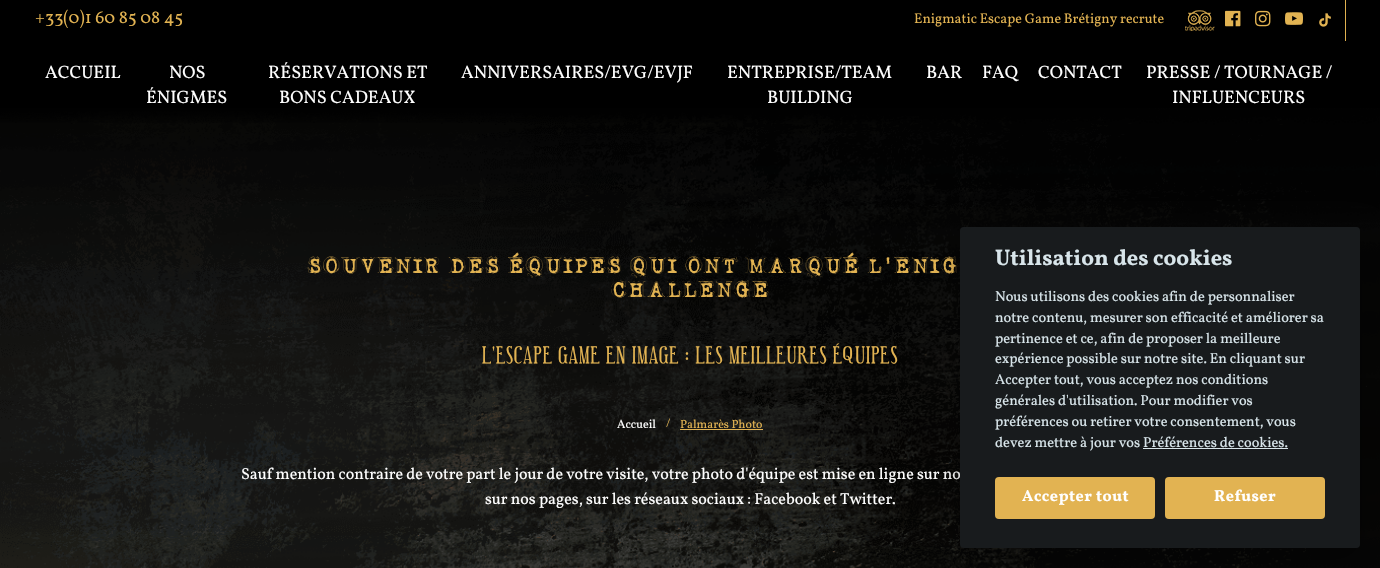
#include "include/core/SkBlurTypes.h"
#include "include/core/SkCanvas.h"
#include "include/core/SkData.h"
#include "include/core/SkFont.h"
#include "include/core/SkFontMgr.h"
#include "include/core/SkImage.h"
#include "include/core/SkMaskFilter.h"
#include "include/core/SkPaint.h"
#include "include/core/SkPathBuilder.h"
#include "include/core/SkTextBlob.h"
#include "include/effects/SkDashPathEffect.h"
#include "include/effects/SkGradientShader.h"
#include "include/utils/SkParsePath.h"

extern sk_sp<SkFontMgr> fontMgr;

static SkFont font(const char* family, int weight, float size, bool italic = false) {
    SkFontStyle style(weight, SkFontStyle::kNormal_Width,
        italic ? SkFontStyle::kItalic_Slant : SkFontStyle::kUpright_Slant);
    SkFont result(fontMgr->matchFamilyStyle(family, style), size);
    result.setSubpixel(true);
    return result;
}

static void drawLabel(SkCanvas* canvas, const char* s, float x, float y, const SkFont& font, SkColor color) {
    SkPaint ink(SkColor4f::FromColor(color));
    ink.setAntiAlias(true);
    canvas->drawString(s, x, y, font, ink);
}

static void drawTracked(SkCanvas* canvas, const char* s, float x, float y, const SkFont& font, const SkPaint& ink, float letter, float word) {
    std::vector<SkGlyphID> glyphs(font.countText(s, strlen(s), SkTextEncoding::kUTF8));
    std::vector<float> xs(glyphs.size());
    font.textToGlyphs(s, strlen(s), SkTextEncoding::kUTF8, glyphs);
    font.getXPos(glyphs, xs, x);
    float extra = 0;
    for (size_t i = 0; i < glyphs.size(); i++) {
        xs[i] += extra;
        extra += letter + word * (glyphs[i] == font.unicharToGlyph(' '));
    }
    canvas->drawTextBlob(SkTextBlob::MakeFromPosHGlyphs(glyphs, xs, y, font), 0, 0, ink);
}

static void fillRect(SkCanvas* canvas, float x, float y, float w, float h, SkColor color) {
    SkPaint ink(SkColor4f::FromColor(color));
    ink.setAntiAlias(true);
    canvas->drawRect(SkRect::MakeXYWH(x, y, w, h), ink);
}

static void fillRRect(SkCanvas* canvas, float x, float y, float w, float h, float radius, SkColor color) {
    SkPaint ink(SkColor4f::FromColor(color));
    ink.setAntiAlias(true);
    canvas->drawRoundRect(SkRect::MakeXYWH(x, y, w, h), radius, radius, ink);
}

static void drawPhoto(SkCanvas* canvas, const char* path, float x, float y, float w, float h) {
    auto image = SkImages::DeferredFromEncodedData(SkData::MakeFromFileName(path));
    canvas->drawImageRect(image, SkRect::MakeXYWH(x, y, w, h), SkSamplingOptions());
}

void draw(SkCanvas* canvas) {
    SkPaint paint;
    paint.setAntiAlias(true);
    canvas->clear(0xFF000000);
    drawPhoto(canvas, "assets/img1.png", 0, 108, 1380, 460);
    {
        const SkColor colors[] = {0x00000000, 0xFF000000};
        const float stops[] = {0.01f, 0.18f};
        const SkPoint ends[] = {{690, 131}, {690, 0}};
        paint.setShader(SkGradientShader::MakeLinear(ends, colors, stops, 2, SkTileMode::kClamp));
        paint.setAlpha(255);
    }
    canvas->drawRect(SkRect::MakeXYWH(0, 108, 1124, 15), paint);
    SkFont font1 = font("Vollkorn", 400, 18);
    drawLabel(canvas, "+33(0)1 60 85 08 45", 35, 23, font1, 0xFFE2B352);
    fillRect(canvas, 1345, 0, 1, 41, 0xFFE0B150);
    SkFont font2 = font("Vollkorn", 400, 14);
    drawLabel(canvas, "Enigmatic Escape Game Brétigny recrute", 914, 23, font2, 0xFFE2B352);
    drawPhoto(canvas, "assets/img2.png", 1185, 10, 30, 21);
    drawPhoto(canvas, "assets/img3.png", 1225, 10, 16, 17);
    drawPhoto(canvas, "assets/img4.png", 1255, 10, 16, 17);
    drawPhoto(canvas, "assets/img5.png", 1285, 12, 18, 13);
    drawPhoto(canvas, "assets/img6.png", 1319, 13, 12, 14);
    drawLabel(canvas, "ACCUEIL", 45, 78, font1, 0xFFFFFFFF);
    drawLabel(canvas, "NOS", 169, 78, font1, 0xFFFFFFFF);
    drawLabel(canvas, "ÉNIGMES", 146, 103, font1, 0xFFFFFFFF);
    drawLabel(canvas, "RÉSERVATIONS ET", 268, 78, font1, 0xFFFFFFFF);
    drawLabel(canvas, "BONS CADEAUX", 279, 103, font1, 0xFFFFFFFF);
    drawLabel(canvas, "ANNIVERSAIRES/EVG/EVJF", 461, 78, font1, 0xFFFFFFFF);
    drawLabel(canvas, "ENTREPRISE/TEAM", 727, 78, font1, 0xFFFFFFFF);
    drawLabel(canvas, "BUILDING", 767, 103, font1, 0xFFFFFFFF);
    drawLabel(canvas, "BAR", 926, 78, font1, 0xFFFFFFFF);
    drawLabel(canvas, "FAQ", 982, 78, font1, 0xFFFFFFFF);
    drawLabel(canvas, "CONTACT", 1038, 78, font1, 0xFFFFFFFF);
    drawLabel(canvas, "PRESSE / TOURNAGE /", 1146, 78, font1, 0xFFFFFFFF);
    drawLabel(canvas, "INFLUENCEURS", 1172, 103, font1, 0xFFFFFFFF);
    SkFont font3 = font("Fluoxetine", 400, 20);
    paint.setShader(nullptr);
    paint.setColor(0xFFE2B352);
    drawTracked(canvas, "SOUVENIR DES ÉQUIPES QUI ONT MARQUÉ L'ENIG", 307, 273, font3, paint, 1, 0);
    drawTracked(canvas, "CHALLENGE", 611, 297, font3, paint, 1, 0);
    SkFont font4 = font("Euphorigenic", 400, 20);
    drawTracked(canvas, "L'ESCAPE GAME EN IMAGE : LES MEILLEURES ÉQUIPES", 482, 360, font4, paint, 1, 0);
    SkFont font5 = font("Vollkorn", 400, 12);
    drawLabel(canvas, "Accueil", 617, 428, font5, 0xFFFFFFFF);
    drawLabel(canvas, "/", 666, 427, font5, 0xFFE2B352);
    drawLabel(canvas, "Palmarès Photo", 680, 428, font5, 0xFFE2B352);
    fillRect(canvas, 680, 429, 83, 1, 0xFFE2B352);
    SkFont font6 = font("Vollkorn", 400, 16);
    drawLabel(canvas, "Sauf mention contraire de votre part le jour de votre visite, votre photo d'équipe est mise en ligne sur no", 241, 479, font6, 0xFFFFFFFF);
    drawLabel(canvas, "sur nos pages, sur les réseaux sociaux : Facebook et Twitter.", 485, 504, font6, 0xFFFFFFFF);
    paint.setColor(0x47020203);
    paint.setMaskFilter(SkMaskFilter::MakeBlur(kNormal_SkBlurStyle, 15));
    canvas->drawRoundRect(SkRect::MakeXYWH(960, 237, 400, 321), 4, 4, paint);
    paint.setMaskFilter(nullptr);
    fillRRect(canvas, 960, 227, 400, 321, 4, 0xFF181B1D);
    SkFont font7 = font("Vollkorn", 700, 22.4f);
    drawLabel(canvas, "Utilisation des cookies", 995, 265, font7, 0xFFD8E5EA);
    SkFont font8 = font("Vollkorn", 400, 14.4f);
    drawLabel(canvas, "Nous utilisons des cookies afin de personnaliser", 995, 301, font8, 0xFFD8E5EA);
    drawLabel(canvas, "notre contenu, mesurer son efficacité et améliorer sa", 995, 322, font8, 0xFFD8E5EA);
    drawLabel(canvas, "pertinence et ce, afin de proposer la meilleure", 995, 343, font8, 0xFFD8E5EA);
    drawLabel(canvas, "expérience possible sur notre site. En cliquant sur", 995, 363, font8, 0xFFD8E5EA);
    drawLabel(canvas, "Accepter tout, vous acceptez nos conditions", 995, 384, font8, 0xFFD8E5EA);
    drawLabel(canvas, "générales d'utilisation. Pour modifier vos", 995, 405, font8, 0xFFD8E5EA);
    drawLabel(canvas, "préférences ou retirer votre consentement, vous", 995, 426, font8, 0xFFD8E5EA);
    drawLabel(canvas, "devez mettre à jour vos Préférences de cookies.", 995, 447, font8, 0xFFD8E5EA);
    fillRect(canvas, 1143, 448, 145, 1, 0xFFD8E5EA);
    fillRRect(canvas, 995, 477, 160, 42, 4, 0xFFE2B352);
    SkFont font9 = font("Vollkorn", 700, 16);
    paint.setColor(0xFFFFFFFF);
    drawTracked(canvas, "Accepter tout", 1022, 501, font9, paint, 0.5f, 0);
    fillRRect(canvas, 1165, 477, 160, 42, 4, 0xFFE2B352);
    drawTracked(canvas, "Refuser", 1214, 501, font9, paint, 0.5f, 0);
}
